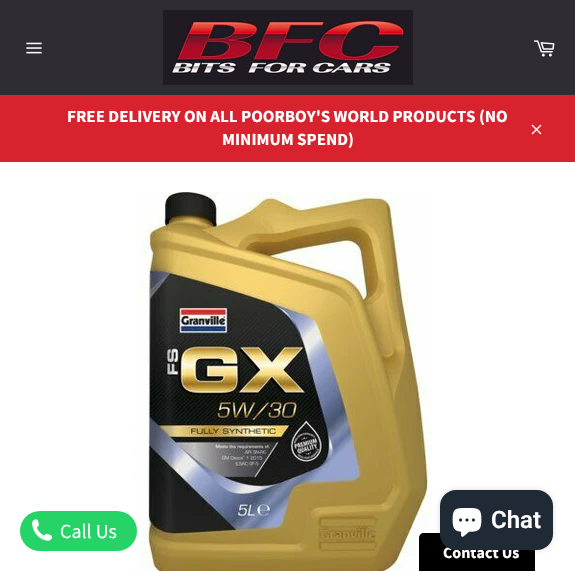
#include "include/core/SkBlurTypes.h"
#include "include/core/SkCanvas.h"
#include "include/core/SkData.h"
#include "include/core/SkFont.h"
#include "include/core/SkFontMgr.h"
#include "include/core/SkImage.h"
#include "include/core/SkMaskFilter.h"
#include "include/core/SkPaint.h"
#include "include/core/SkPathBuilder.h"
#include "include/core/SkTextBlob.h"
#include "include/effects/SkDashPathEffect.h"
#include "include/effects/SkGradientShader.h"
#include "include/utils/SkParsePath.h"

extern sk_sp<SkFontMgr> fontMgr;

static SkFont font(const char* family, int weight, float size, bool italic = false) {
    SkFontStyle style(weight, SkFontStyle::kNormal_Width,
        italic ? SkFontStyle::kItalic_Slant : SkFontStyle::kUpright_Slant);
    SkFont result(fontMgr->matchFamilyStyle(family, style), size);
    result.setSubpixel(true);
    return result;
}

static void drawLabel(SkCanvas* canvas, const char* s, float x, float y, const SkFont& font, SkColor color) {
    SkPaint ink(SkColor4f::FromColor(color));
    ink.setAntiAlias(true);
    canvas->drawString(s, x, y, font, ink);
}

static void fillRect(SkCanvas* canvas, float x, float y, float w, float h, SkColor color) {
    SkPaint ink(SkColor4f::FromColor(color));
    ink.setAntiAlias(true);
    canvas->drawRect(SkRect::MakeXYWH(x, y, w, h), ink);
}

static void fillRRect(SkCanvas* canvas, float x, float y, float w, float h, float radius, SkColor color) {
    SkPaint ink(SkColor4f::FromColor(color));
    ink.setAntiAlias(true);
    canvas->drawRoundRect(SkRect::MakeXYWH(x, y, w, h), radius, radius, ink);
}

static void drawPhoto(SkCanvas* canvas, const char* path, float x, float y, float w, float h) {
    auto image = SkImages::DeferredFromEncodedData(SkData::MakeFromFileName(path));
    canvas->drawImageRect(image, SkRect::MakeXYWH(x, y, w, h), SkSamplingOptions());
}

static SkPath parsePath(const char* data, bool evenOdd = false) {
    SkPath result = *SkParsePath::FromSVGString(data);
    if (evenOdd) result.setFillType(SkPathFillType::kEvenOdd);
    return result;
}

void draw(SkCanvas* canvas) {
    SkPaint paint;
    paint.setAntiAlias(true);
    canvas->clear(0xFF2F2D33);
    drawPhoto(canvas, "assets/img1.png", 26, 42, 16, 12);
    drawPhoto(canvas, "assets/img2.png", 163, 10, 250, 75);
    drawPhoto(canvas, "assets/img3.png", 533, 40, 22, 17);
    fillRect(canvas, 0, 95, 575, 67, 0xFFD8232F);
    SkFont font1 = font("Source Sans Pro", 700, 17);
    drawLabel(canvas, "FREE DELIVERY ON ALL POORBOY'S WORLD PRODUCTS (NO", 67, 122, font1, 0xFFFFFFFF);
    drawLabel(canvas, "MINIMUM SPEND)", 222, 145, font1, 0xFFFFFFFF);
    drawPhoto(canvas, "assets/img4.png", 531, 124, 11, 11);
    fillRect(canvas, 0, 162, 575, 409, 0xFFFFFFFF);
    drawPhoto(canvas, "assets/img5.png", 136, 192, 297, 379);
    paint.setColor(0xFF000000);
    canvas->drawPath(parsePath("M424 533H530C533 533 535 535 535 538V571H419V538C419 535 421 533 424 533Z"), paint);
    paint.setColor(0x26000000);
    paint.setMaskFilter(SkMaskFilter::MakeBlur(kNormal_SkBlurStyle, 2.5f));
    canvas->drawRoundRect(SkRect::MakeXYWH(440, 490, 113, 60), 16, 16, paint);
    paint.setMaskFilter(nullptr);
    SkFont font2 = font("Source Sans Pro", 700, 16);
    drawLabel(canvas, "Contact Us", 443, 558, font2, 0xFFFFFFFF);
    fillRRect(canvas, 440, 490, 113, 60, 16, 0xFF202A36);
    drawPhoto(canvas, "assets/img6.png", 452, 508, 30, 29);
    SkFont font3 = font("Roboto", 600, 24);
    drawLabel(canvas, "Chat", 491, 528, font3, 0xFFFFFFFF);
    fillRRect(canvas, 20, 511, 117, 40, 20, 0xFF25D366);
    drawPhoto(canvas, "assets/img7.png", 32, 519, 20, 22);
    SkFont font4 = font("Source Sans Pro", 400, 20);
    drawLabel(canvas, "Call Us", 60, 538, font4, 0xFFFFFFFF);
}
